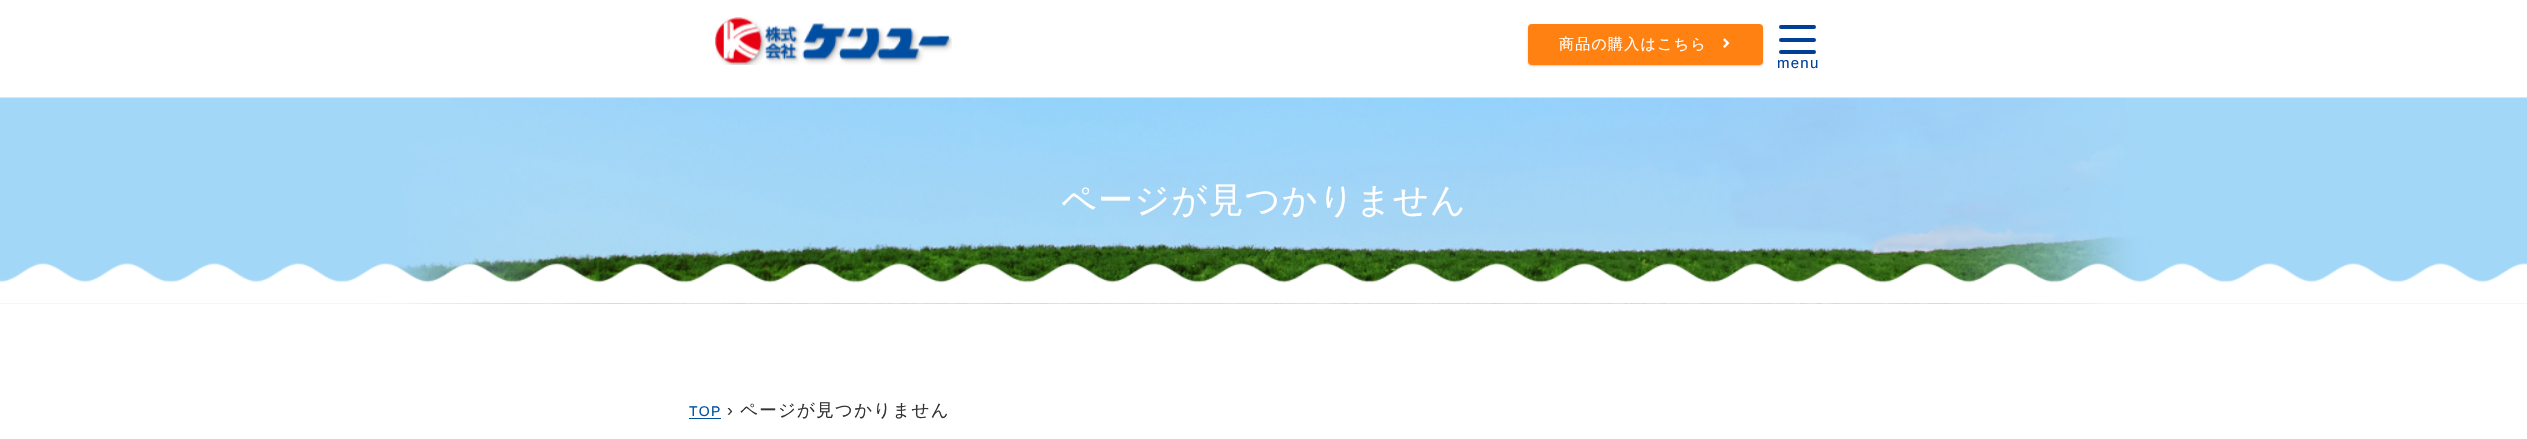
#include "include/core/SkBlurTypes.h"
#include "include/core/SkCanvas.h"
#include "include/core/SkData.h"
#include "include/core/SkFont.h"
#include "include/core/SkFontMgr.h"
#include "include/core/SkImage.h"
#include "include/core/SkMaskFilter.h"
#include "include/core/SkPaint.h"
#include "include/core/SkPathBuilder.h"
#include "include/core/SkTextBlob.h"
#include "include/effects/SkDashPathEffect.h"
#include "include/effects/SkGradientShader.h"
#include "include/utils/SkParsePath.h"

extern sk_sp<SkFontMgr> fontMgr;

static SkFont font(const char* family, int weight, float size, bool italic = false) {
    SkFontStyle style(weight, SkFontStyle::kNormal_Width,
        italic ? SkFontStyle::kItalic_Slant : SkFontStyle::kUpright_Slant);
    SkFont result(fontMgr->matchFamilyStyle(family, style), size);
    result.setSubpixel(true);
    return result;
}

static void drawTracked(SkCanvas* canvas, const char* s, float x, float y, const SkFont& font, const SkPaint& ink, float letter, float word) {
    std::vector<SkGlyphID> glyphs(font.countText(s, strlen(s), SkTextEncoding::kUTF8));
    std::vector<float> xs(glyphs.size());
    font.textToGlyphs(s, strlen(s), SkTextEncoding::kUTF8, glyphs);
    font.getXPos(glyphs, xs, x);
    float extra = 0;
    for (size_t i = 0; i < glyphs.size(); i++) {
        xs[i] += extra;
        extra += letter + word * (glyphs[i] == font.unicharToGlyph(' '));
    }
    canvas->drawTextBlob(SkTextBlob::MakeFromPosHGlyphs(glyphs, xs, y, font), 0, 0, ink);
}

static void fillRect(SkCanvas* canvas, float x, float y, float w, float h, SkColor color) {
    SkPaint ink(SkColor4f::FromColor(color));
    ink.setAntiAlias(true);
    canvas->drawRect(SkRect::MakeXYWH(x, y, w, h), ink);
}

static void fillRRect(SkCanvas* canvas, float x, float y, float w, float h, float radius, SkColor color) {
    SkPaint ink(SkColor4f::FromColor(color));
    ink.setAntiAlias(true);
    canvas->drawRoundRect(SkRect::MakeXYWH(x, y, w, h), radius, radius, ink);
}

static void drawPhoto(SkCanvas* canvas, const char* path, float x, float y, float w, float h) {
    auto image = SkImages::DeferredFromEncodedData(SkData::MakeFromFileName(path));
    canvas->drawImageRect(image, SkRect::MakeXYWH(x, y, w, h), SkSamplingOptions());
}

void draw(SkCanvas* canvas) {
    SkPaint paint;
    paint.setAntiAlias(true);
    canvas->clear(0xFFFFFFFF);
    drawPhoto(canvas, "assets/img1.png", 715, 17, 237, 48);
    paint.setColor(0x33000000);
    paint.setMaskFilter(SkMaskFilter::MakeBlur(kNormal_SkBlurStyle, 1));
    canvas->drawRoundRect(SkRect::MakeXYWH(1528, 25, 235, 41), 4, 4, paint);
    paint.setMaskFilter(nullptr);
    fillRRect(canvas, 1528, 24, 235, 41, 4, 0xFFFF8111);
    SkFont font1 = font("WenQuanYi Zen Hei", 500, 15);
    paint.setColor(0xFFFFFFFF);
    drawTracked(canvas, "商品の購入はこちら", 1559, 49, font1, paint, 1.25f, 0);
    drawPhoto(canvas, "assets/img2.png", 1723, 38, 7, 10);
    fillRRect(canvas, 1779, 25, 37, 4, 2, 0xFF003F98);
    fillRRect(canvas, 1779, 38, 37, 4, 2, 0xFF003F98);
    fillRRect(canvas, 1779, 50, 37, 4, 2, 0xFF003F98);
    SkFont font2 = font("Liberation Sans", 400, 15);
    paint.setColor(0xFF003F98);
    drawTracked(canvas, "menu", 1777, 68, font2, paint, 1.25f, 0);
    drawPhoto(canvas, "assets/img3.png", 0, 97, 2527, 207);
    SkFont font3 = font("WenQuanYi Zen Hei", 500, 35);
    paint.setColor(0xFFFFFFFF);
    drawTracked(canvas, "ページが見つかりません", 1061, 212, font3, paint, 1.25f, 0);
    SkFont font4 = font("Liberation Sans", 400, 14);
    paint.setColor(0xFF00519E);
    drawTracked(canvas, "TOP", 689, 416, font4, paint, 1.25f, 0);
    fillRect(canvas, 689, 418, 32, 1, 0xFF00519E);
    SkFont font5 = font("Liberation Sans", 400, 17.5f);
    paint.setColor(0xFF333333);
    drawTracked(canvas, "›", 727, 416, font5, paint, 1.25f, 0);
    SkFont font6 = font("WenQuanYi Zen Hei", 500, 17.5f);
    drawTracked(canvas, "ページが見つかりません", 740, 416, font6, paint, 1.25f, 0);
}
